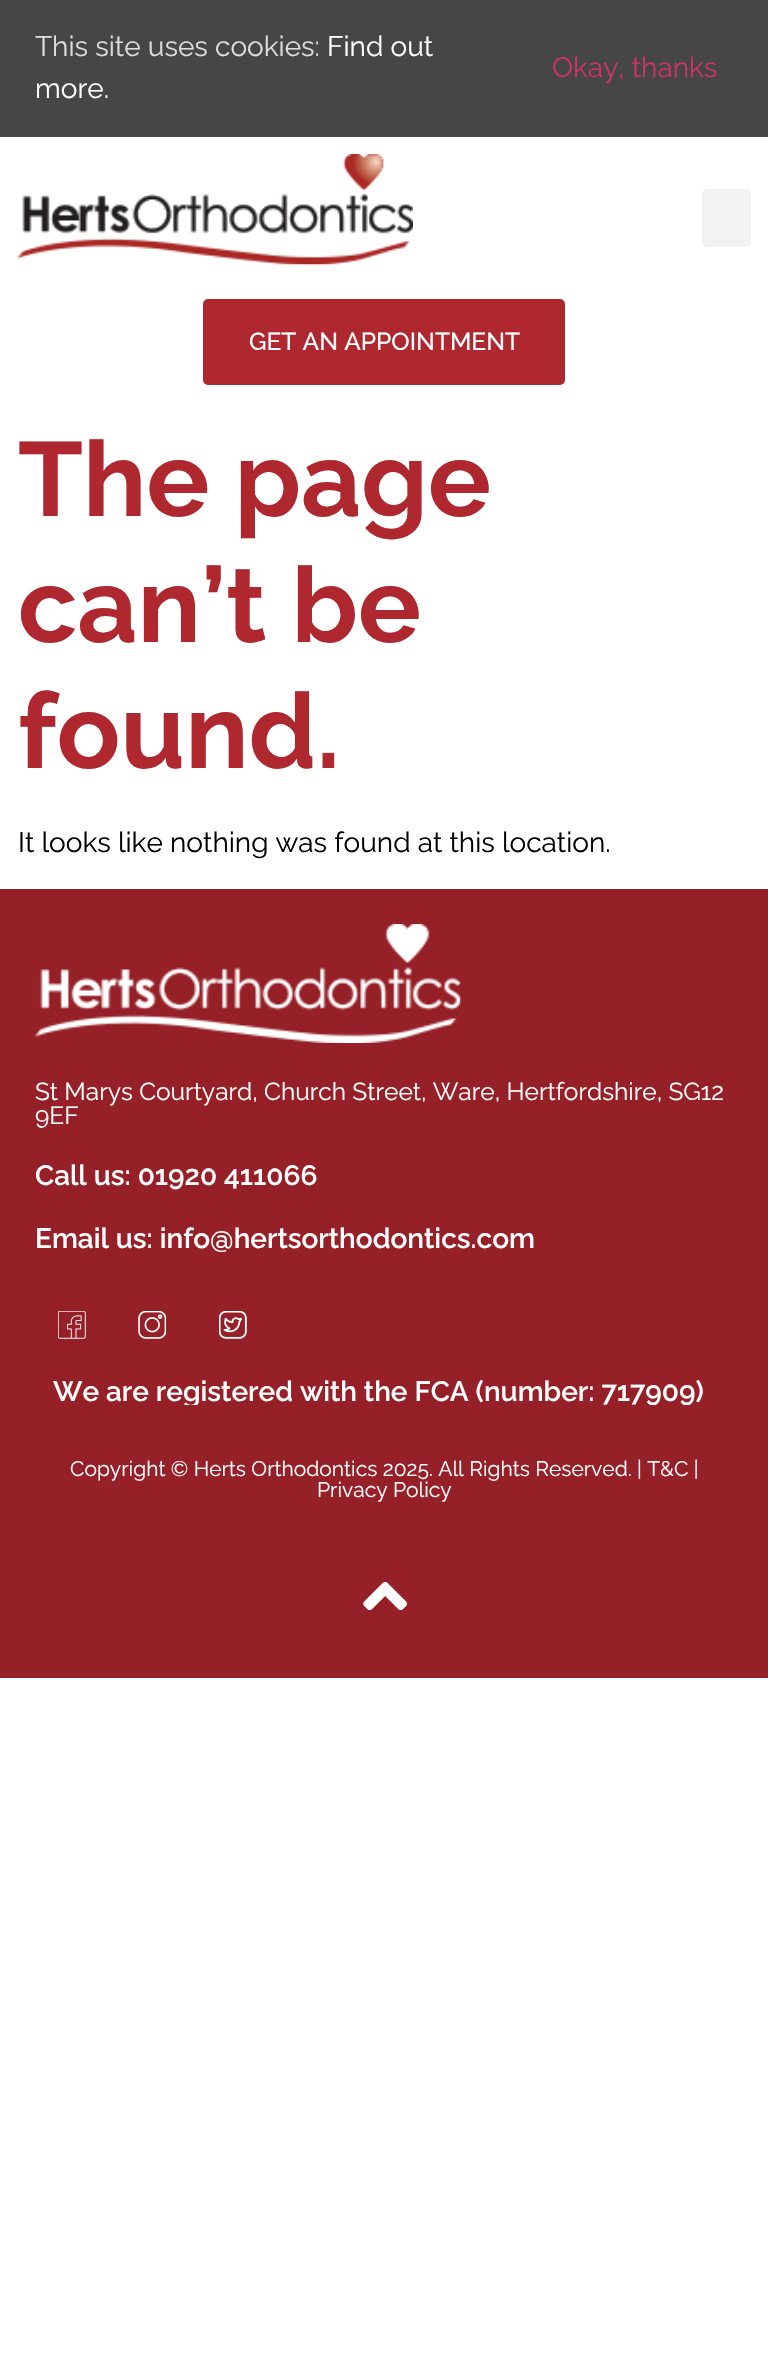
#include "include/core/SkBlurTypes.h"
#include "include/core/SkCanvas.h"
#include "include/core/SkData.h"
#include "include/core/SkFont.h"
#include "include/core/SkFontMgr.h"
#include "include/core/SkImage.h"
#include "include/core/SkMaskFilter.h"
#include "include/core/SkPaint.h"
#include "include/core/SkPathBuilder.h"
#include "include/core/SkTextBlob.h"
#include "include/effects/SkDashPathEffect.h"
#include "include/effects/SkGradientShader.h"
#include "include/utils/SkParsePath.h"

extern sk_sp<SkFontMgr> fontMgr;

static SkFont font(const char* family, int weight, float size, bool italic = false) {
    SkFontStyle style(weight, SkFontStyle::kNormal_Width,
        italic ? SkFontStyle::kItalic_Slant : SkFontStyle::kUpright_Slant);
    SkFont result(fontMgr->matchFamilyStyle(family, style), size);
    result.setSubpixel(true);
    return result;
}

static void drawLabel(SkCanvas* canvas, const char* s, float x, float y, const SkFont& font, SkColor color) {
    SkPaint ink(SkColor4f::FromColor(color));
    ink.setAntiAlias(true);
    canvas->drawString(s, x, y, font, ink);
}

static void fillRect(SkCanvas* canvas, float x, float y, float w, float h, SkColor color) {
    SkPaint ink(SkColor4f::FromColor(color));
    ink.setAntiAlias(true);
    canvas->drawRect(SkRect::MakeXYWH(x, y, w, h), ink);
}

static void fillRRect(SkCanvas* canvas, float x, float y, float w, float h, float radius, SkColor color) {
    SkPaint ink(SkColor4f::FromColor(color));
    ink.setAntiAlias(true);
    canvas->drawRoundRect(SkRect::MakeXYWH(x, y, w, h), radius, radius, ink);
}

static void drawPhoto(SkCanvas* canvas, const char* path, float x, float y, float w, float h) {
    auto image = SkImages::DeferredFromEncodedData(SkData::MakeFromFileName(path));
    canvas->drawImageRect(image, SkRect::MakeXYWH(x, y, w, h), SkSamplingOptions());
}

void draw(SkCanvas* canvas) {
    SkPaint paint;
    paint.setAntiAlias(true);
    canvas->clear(0xFFFFFFFF);
    fillRect(canvas, 0, 0, 768, 137, 0xFF464646);
    SkFont font1 = font("Raleway", 400, 28);
    drawLabel(canvas, "This site uses cookies:", 35, 56, font1, 0xFFDDDDDD);
    drawLabel(canvas, "Find out", 327, 56, font1, 0xFFFFFFFF);
    drawLabel(canvas, "more.", 35, 98, font1, 0xFFFFFFFF);
    drawLabel(canvas, "Okay, thanks", 552, 77, font1, 0xFFCC3366);
    drawPhoto(canvas, "assets/img1.png", 17, 154, 396, 111);
    fillRRect(canvas, 702, 189, 49, 58, 5, 0xFFF2F2F2);
    paint.setColor(0xFFAF272F);
    canvas->drawRoundRect(SkRect::MakeXYWH(205, 301, 358, 82), 3, 3, paint);
    paint.setStroke(true);
    paint.setStrokeWidth(4);
    canvas->drawRoundRect(SkRect::MakeXYWH(205, 301, 358, 82), 3, 3, paint);
    SkFont font2 = font("Raleway", 500, 24.5f);
    drawLabel(canvas, "GET AN APPOINTMENT", 249, 350, font2, 0xFFFFFFFF);
    SkFont font3 = font("Raleway", 700, 105);
    drawLabel(canvas, "The page", 18, 516, font3, 0xFFAF272F);
    drawLabel(canvas, "can’t be", 18, 642, font3, 0xFFAF272F);
    drawLabel(canvas, "found.", 18, 768, font3, 0xFFAF272F);
    drawLabel(canvas, "It looks like nothing was found at this location.", 18, 852, font1, 0xFF000000);
    fillRect(canvas, 0, 889, 768, 789, 0xFF962027);
    drawPhoto(canvas, "assets/img2.png", 35, 924, 426, 119);
    SkFont font4 = font("Raleway", 400, 24.5f);
    drawLabel(canvas, "St Marys Courtyard, Church Street, Ware, Hertfordshire, SG12", 35, 1100, font4, 0xFFFFFFFF);
    drawLabel(canvas, "9EF", 35, 1124, font4, 0xFFFFFFFF);
    SkFont font5 = font("Raleway", 600, 28);
    drawLabel(canvas, "Call us: 01920 411066", 35, 1185, font5, 0xFFFFFFFF);
    drawLabel(canvas, "Email us: info@hertsorthodontics.com", 35, 1248, font5, 0xFFFFFFFF);
    drawPhoto(canvas, "assets/img3.png", 58, 1311, 28, 28);
    drawPhoto(canvas, "assets/img4.png", 138, 1311, 28, 28);
    drawPhoto(canvas, "assets/img5.png", 219, 1311, 28, 28);
    drawLabel(canvas, "We are registered with the FCA (number: 717909)", 53, 1401, font5, 0xFFFFFFFF);
    fillRect(canvas, 184, 1405, 505, 3, 0xFF962027);
    SkFont font6 = font("Raleway", 400, 21);
    drawLabel(canvas, "Copyright © Herts Orthodontics 2025. All Rights Reserved. | T&C |", 70, 1476, font6, 0xFFFFFFFF);
    drawLabel(canvas, "Privacy Policy", 317, 1497, font6, 0xFFFFFFFF);
    drawPhoto(canvas, "assets/img6.png", 363, 1581, 44, 30);
}
